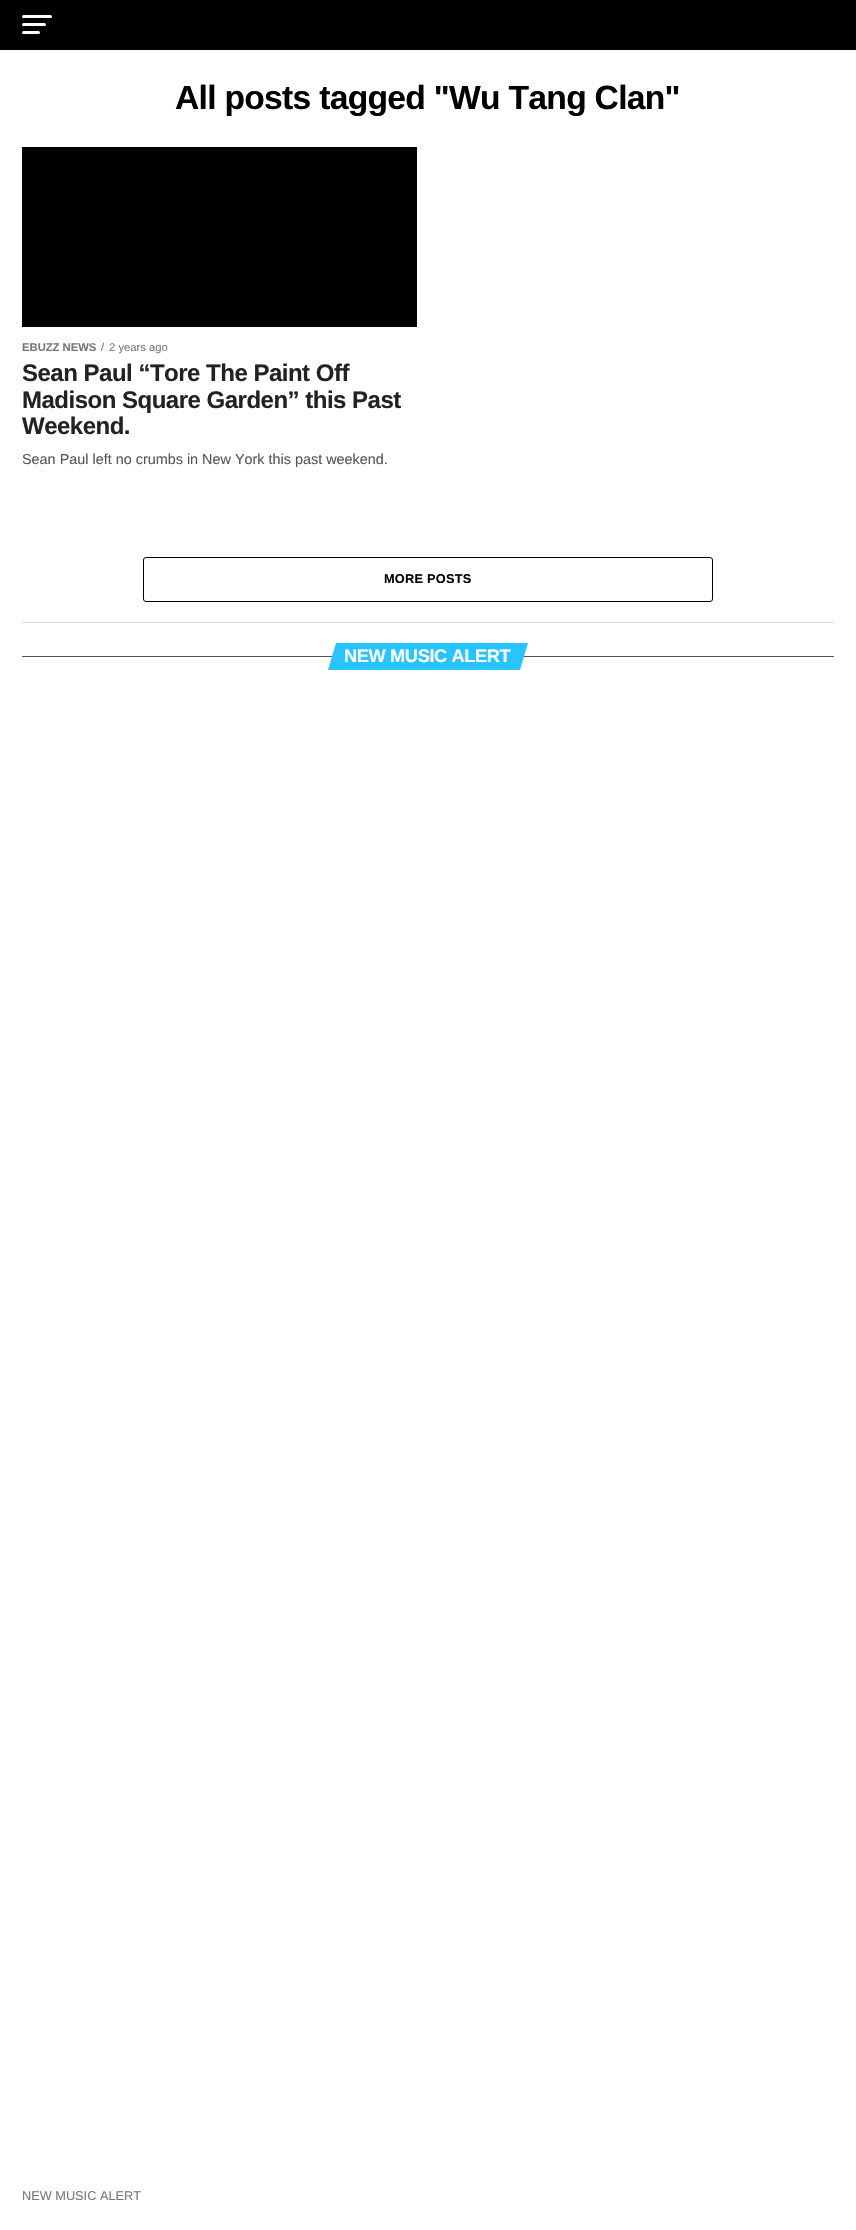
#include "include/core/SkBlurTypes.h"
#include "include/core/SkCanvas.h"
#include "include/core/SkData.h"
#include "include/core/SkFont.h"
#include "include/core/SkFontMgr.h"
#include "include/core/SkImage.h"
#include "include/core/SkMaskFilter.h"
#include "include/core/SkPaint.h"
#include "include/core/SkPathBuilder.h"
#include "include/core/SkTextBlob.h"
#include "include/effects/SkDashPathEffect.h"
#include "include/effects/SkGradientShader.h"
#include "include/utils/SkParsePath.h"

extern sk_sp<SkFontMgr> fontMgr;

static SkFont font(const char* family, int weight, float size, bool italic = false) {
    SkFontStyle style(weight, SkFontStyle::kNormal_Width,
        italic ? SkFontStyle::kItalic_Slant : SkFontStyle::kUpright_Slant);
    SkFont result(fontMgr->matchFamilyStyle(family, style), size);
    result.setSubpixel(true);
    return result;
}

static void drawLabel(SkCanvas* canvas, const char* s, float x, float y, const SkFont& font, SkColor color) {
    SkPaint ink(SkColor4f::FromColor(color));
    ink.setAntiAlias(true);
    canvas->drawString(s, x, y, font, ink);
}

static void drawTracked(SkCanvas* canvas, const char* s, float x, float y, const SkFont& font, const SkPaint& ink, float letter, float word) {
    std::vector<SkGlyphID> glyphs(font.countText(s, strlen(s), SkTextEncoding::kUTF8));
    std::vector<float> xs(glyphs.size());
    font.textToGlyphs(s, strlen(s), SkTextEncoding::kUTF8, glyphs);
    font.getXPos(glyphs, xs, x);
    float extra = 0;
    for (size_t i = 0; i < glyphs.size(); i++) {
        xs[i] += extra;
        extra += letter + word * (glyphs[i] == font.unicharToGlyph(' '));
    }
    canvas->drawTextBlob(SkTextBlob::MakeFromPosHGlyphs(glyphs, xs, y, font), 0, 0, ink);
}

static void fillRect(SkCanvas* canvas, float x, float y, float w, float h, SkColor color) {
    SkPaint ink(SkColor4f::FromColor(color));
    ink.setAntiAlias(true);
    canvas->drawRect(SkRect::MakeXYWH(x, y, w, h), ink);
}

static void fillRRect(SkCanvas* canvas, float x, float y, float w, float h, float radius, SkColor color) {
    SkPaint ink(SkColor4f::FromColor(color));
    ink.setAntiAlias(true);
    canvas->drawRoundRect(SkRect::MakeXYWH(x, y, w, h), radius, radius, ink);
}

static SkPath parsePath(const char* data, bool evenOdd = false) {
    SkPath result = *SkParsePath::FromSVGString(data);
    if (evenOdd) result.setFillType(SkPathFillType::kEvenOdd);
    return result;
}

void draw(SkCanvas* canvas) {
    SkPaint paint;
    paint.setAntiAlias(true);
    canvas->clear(0xFF000000);
    fillRRect(canvas, 22, 15, 30, 3, 1.5f, 0xFFFFFFFF);
    fillRRect(canvas, 22, 23, 24, 3, 1.5f, 0xFFFFFFFF);
    fillRRect(canvas, 22, 31, 18, 3, 1.5f, 0xFFFFFFFF);
    fillRect(canvas, 0, 50, 856, 2180, 0xFFFFFFFF);
    SkFont font1 = font("Liberation Sans", 700, 33.6f);
    paint.setColor(0xFF000000);
    drawTracked(canvas, "All posts tagged \"Wu Tang Clan\"", 175, 109, font1, paint, -0.7f, 0);
    fillRect(canvas, 22, 147, 395, 180, 0xFF000000);
    SkFont font2 = font("Liberation Sans", 700, 11.25f);
    drawLabel(canvas, "EBUZZ NEWS", 22, 351, font2, 0xFF777777);
    SkFont font3 = font("Liberation Sans", 400, 11.25f);
    drawLabel(canvas, "/", 101, 351, font3, 0xFF777777);
    drawLabel(canvas, "2 years ago", 109, 351, font3, 0xFF777777);
    SkFont font4 = font("Liberation Sans", 700, 24);
    paint.setColor(0xFF222222);
    drawTracked(canvas, "Sean Paul “Tore The Paint Off", 22, 381, font4, paint, -0.5f, 0);
    drawTracked(canvas, "Madison Square Garden” this Past", 22, 408, font4, paint, -0.5f, 0);
    drawTracked(canvas, "Weekend.", 22, 434, font4, paint, -0.5f, 0);
    SkFont font5 = font("Liberation Sans", 400, 14.4f);
    drawLabel(canvas, "Sean Paul left no crumbs in New York this past weekend.", 22, 464, font5, 0xFF555555);
    paint.setStroke(true);
    paint.setStrokeWidth(1);
    paint.setColor(0xFF000000);
    canvas->drawRoundRect(SkRect::MakeXYWH(143.5f, 557.5f, 569, 44), 2.5f, 2.5f, paint);
    SkFont font6 = font("Liberation Sans", 700, 12.75f);
    paint.setStroke(false);
    drawTracked(canvas, "MORE POSTS", 384, 583, font6, paint, 0.25f, 0);
    fillRect(canvas, 22, 622, 812, 1, 0xFFDDDDDD);
    fillRect(canvas, 22, 656, 812, 1, 0xFF555555);
    paint.setColor(0xFF27C4FF);
    canvas->drawPath(parsePath("M336 643H528L520 670H328Z"), paint);
    SkFont font7 = font("Liberation Sans", 700, 18.25f);
    paint.setColor(0xFFFFFFFF);
    drawTracked(canvas, "NEW MUSIC ALERT", 344, 662, font7, paint, -0.4f, 0);
    SkFont font8 = font("Liberation Sans", 400, 12.75f);
    drawLabel(canvas, "NEW MUSIC ALERT", 22, 2200, font8, 0xFF777777);
}
